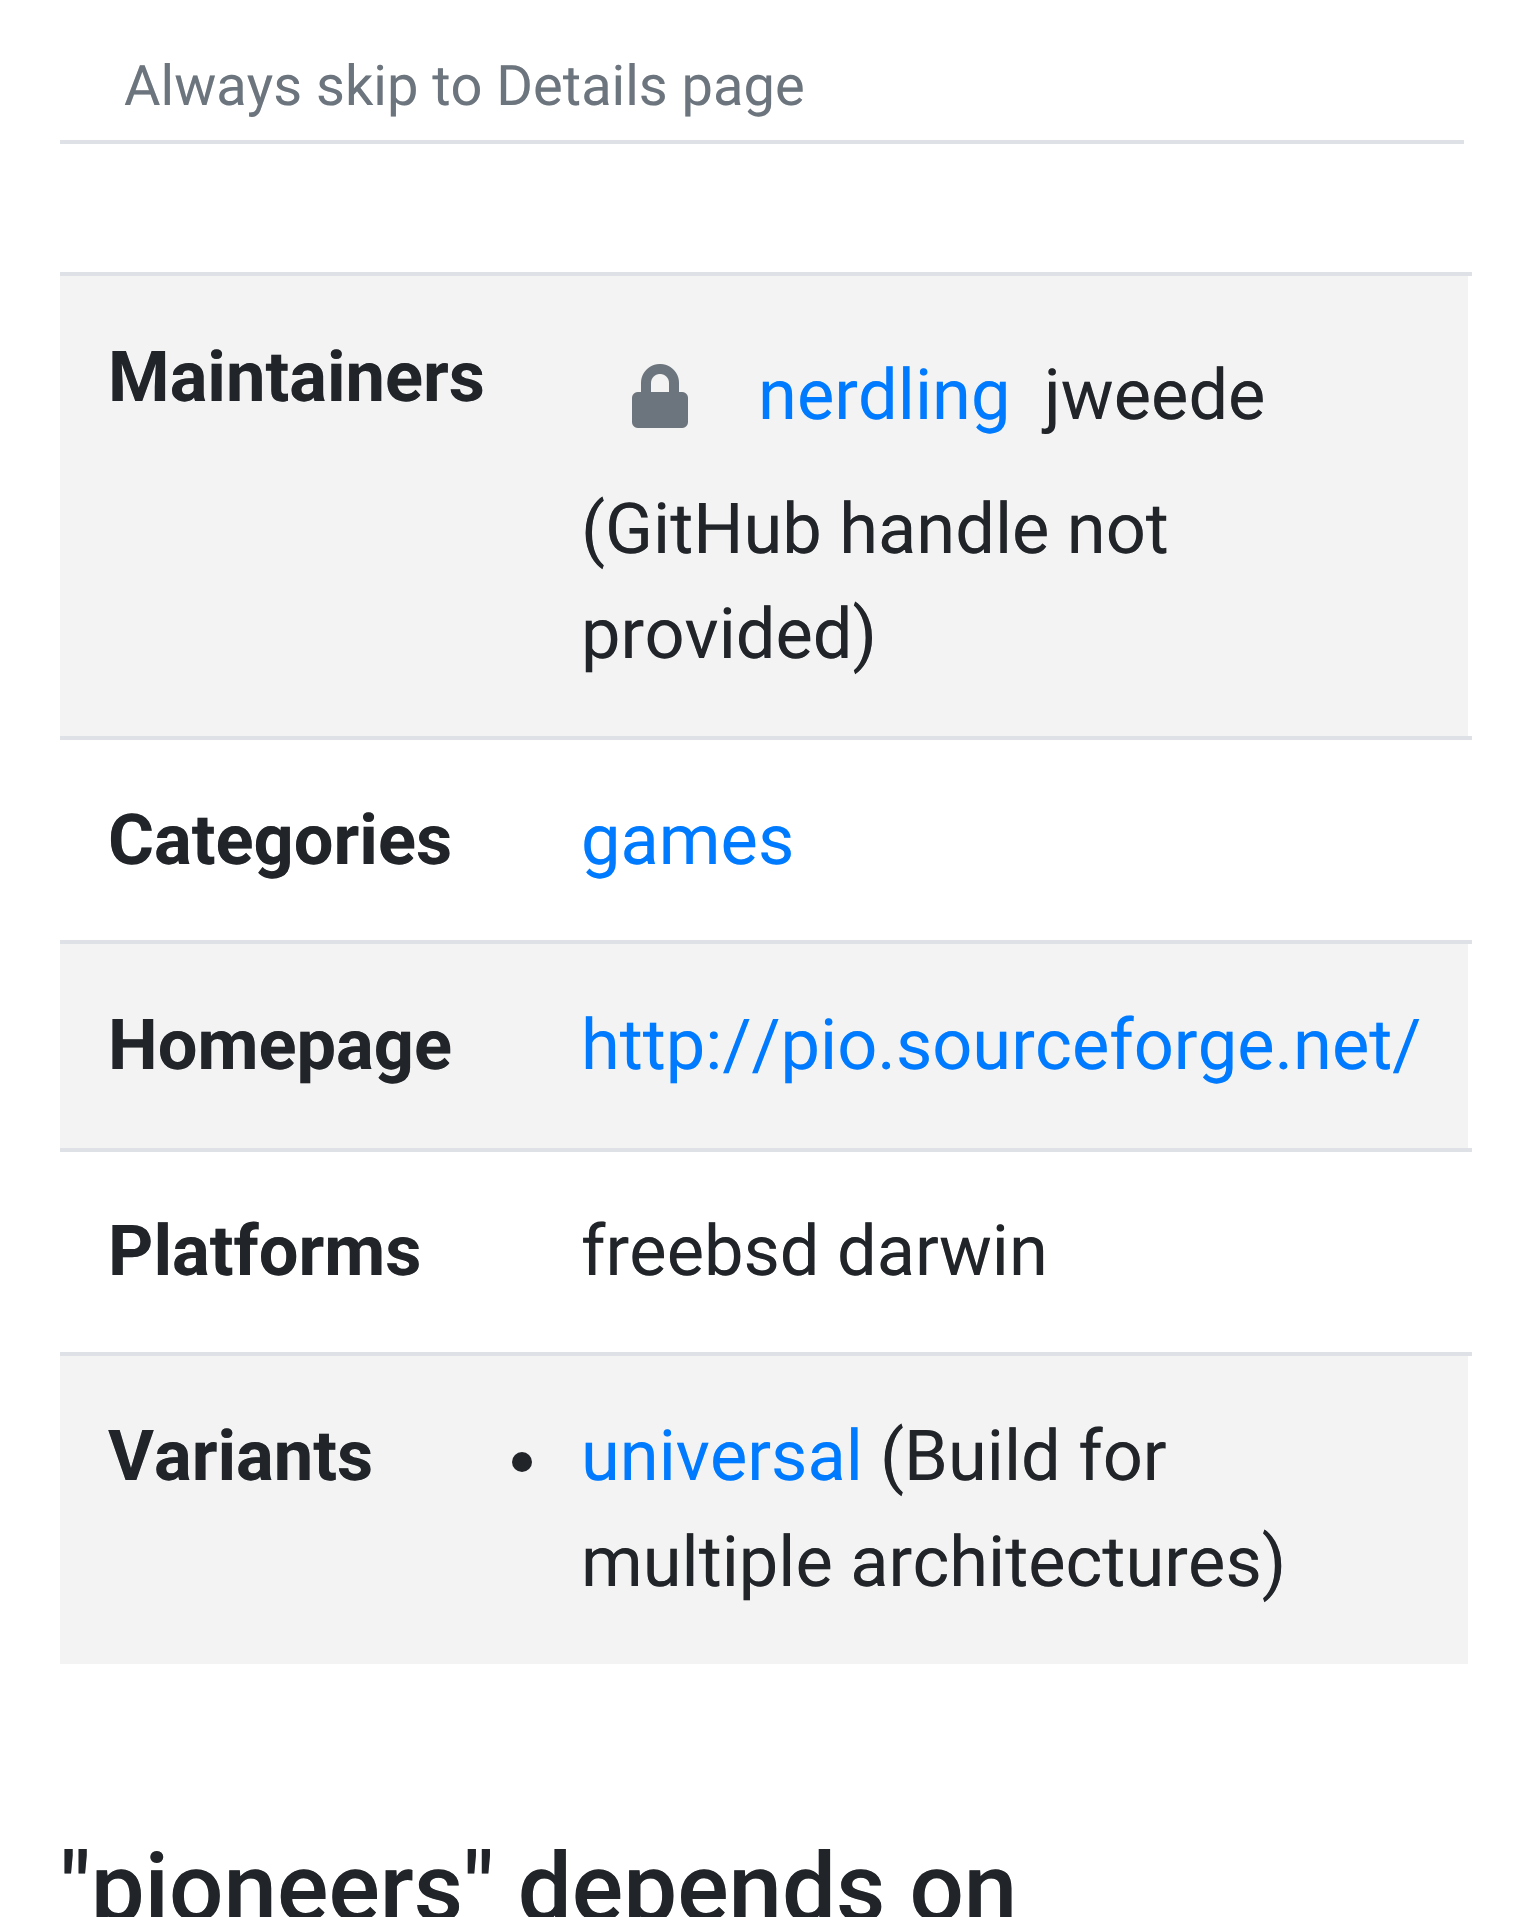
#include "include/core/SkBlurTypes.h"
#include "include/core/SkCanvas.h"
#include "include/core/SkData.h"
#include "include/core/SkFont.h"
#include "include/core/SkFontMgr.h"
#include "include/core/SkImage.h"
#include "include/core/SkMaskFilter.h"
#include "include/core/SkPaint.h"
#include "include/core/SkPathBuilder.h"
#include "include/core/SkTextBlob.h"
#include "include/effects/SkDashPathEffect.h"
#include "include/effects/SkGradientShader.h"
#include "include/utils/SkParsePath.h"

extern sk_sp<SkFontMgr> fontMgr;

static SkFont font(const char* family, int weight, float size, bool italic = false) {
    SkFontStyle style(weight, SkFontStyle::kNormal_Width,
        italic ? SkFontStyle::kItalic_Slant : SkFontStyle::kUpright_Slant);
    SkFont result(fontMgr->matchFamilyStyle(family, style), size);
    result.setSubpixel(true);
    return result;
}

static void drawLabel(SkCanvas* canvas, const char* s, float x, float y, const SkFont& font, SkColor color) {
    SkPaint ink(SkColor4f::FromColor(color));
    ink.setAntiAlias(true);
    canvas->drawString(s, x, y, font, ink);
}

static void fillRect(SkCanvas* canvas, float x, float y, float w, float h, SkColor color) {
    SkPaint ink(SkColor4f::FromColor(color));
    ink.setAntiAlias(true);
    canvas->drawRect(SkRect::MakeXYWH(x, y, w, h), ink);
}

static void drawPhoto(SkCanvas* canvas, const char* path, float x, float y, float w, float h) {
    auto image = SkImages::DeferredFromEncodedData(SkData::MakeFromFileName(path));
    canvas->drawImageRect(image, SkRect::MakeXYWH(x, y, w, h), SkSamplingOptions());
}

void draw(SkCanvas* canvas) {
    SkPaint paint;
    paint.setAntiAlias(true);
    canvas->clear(0xFFFFFFFF);
    fillRect(canvas, 60, 140, 1404, 4, 0xFFDEE2E6);
    SkFont font1 = font("Roboto", 400, 56);
    drawLabel(canvas, "Always skip to Details page", 124, 105, font1, 0xFF6C757D);
    fillRect(canvas, 60, 276, 1408, 460, 0xFFF3F3F3);
    SkFont font2 = font("Roboto", 700, 70.4f);
    drawLabel(canvas, "Maintainers", 108, 401, font2, 0xFF212529);
    fillRect(canvas, 60, 272, 1412, 4, 0xFFDEE2E6);
    drawPhoto(canvas, "assets/img1.png", 632, 364, 56, 64);
    SkFont font3 = font("Roboto", 400, 70.4f);
    drawLabel(canvas, "nerdling", 758, 419, font3, 0xFF007BFF);
    drawLabel(canvas, "jweede", 1044, 419, font3, 0xFF212529);
    drawLabel(canvas, "(GitHub handle not", 581, 553, font3, 0xFF212529);
    drawLabel(canvas, "provided)", 581, 658, font3, 0xFF212529);
    drawLabel(canvas, "Categories", 108, 864, font2, 0xFF212529);
    fillRect(canvas, 60, 736, 1412, 4, 0xFFDEE2E6);
    drawLabel(canvas, "games", 581, 864, font3, 0xFF007BFF);
    fillRect(canvas, 60, 944, 1408, 204, 0xFFF3F3F3);
    drawLabel(canvas, "Homepage", 108, 1069, font2, 0xFF212529);
    fillRect(canvas, 60, 940, 1412, 4, 0xFFDEE2E6);
    drawLabel(canvas, "http://pio.sourceforge.net/", 581, 1069, font3, 0xFF007BFF);
    drawLabel(canvas, "Platforms", 108, 1275, font2, 0xFF212529);
    fillRect(canvas, 60, 1148, 1412, 4, 0xFFDEE2E6);
    drawLabel(canvas, "freebsd darwin", 581, 1275, font3, 0xFF212529);
    fillRect(canvas, 60, 1356, 1408, 308, 0xFFF3F3F3);
    drawLabel(canvas, "Variants", 108, 1480, font2, 0xFF212529);
    fillRect(canvas, 60, 1352, 1412, 4, 0xFFDEE2E6);
    paint.setColor(0xFF212529);
    canvas->drawCircle(522, 1462, 10, paint);
    drawLabel(canvas, "universal", 581, 1480, font3, 0xFF007BFF);
    drawLabel(canvas, "(Build for", 880, 1480, font3, 0xFF212529);
    drawLabel(canvas, "multiple architectures)", 581, 1586, font3, 0xFF212529);
    SkFont font4 = font("Roboto", 500, 96);
    drawLabel(canvas, "\"pioneers\" depends on", 60, 1921, font4, 0xFF212529);
}
